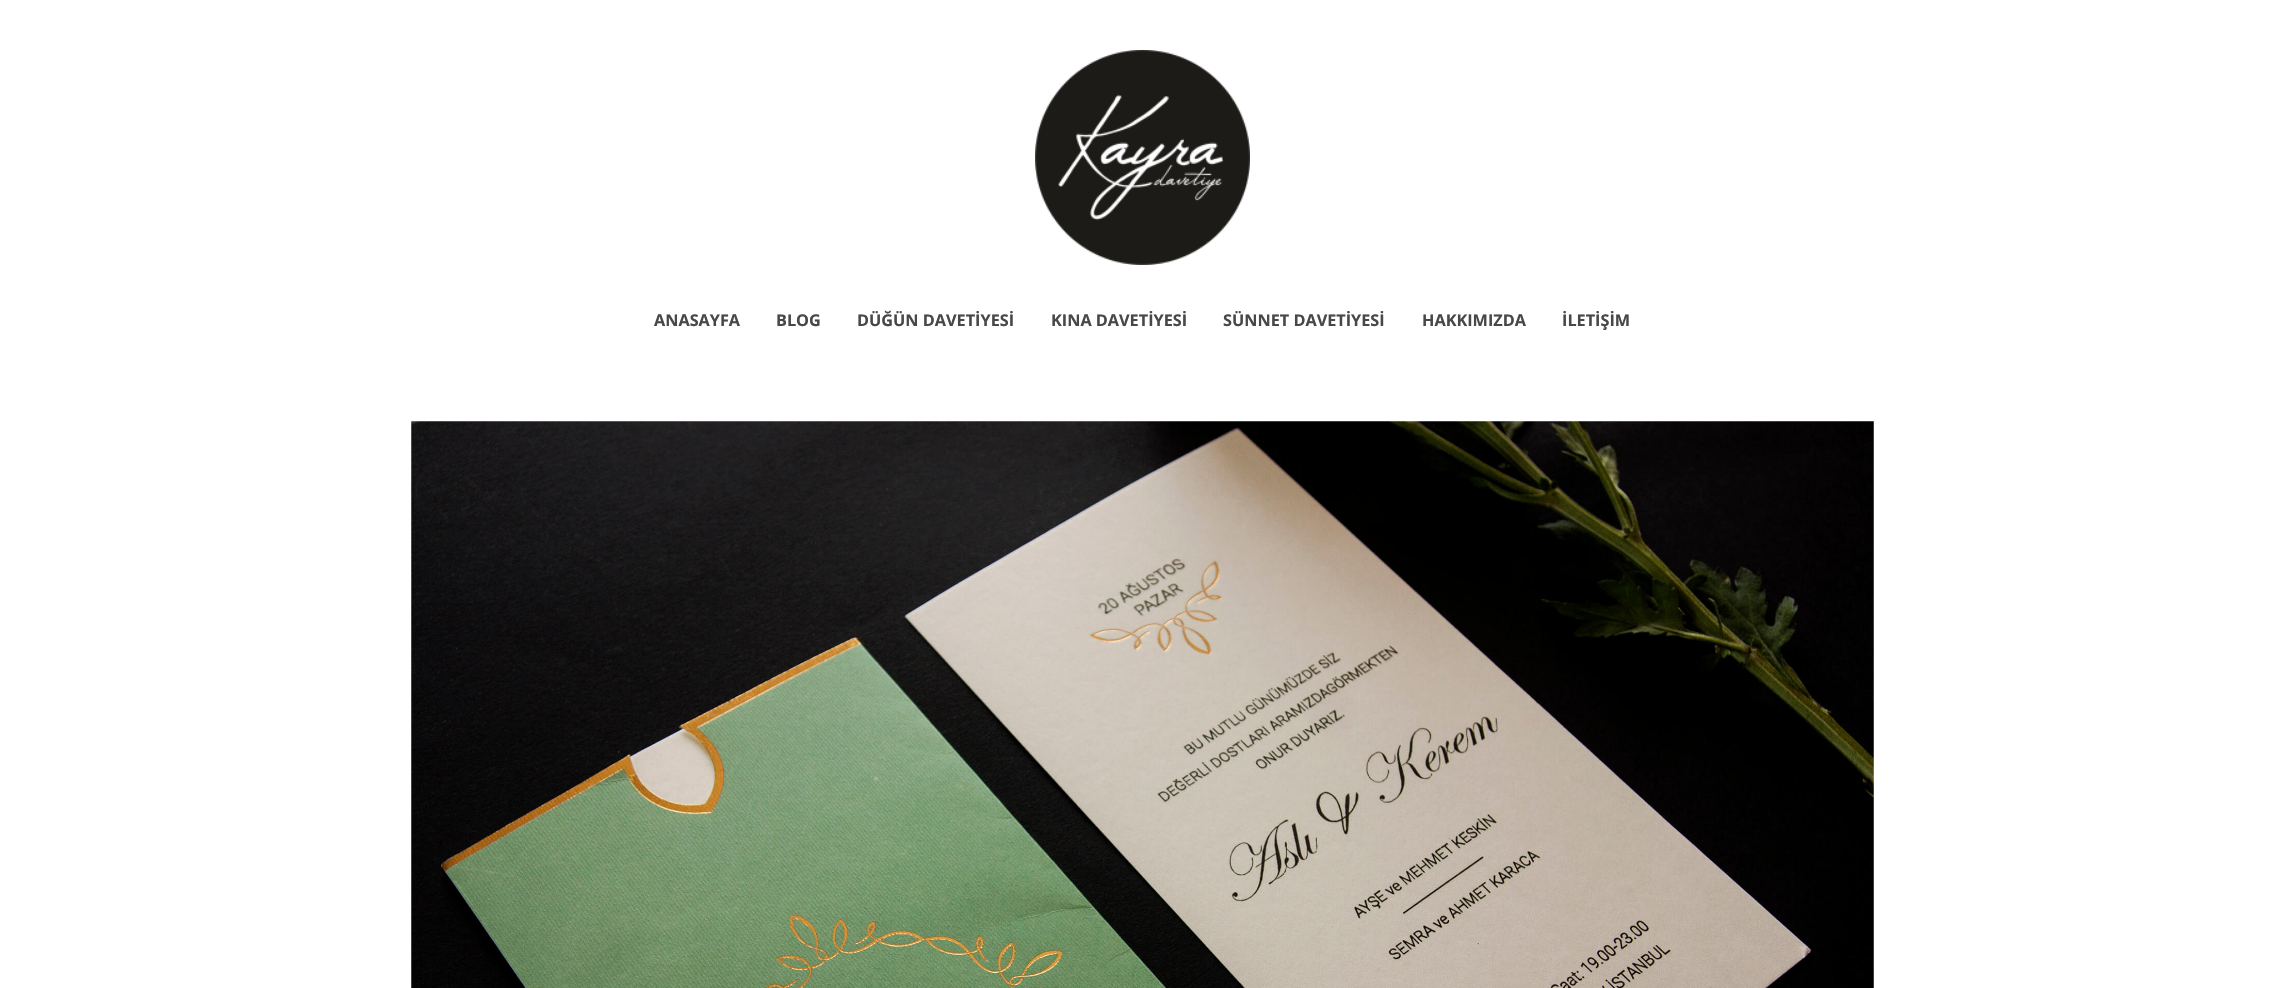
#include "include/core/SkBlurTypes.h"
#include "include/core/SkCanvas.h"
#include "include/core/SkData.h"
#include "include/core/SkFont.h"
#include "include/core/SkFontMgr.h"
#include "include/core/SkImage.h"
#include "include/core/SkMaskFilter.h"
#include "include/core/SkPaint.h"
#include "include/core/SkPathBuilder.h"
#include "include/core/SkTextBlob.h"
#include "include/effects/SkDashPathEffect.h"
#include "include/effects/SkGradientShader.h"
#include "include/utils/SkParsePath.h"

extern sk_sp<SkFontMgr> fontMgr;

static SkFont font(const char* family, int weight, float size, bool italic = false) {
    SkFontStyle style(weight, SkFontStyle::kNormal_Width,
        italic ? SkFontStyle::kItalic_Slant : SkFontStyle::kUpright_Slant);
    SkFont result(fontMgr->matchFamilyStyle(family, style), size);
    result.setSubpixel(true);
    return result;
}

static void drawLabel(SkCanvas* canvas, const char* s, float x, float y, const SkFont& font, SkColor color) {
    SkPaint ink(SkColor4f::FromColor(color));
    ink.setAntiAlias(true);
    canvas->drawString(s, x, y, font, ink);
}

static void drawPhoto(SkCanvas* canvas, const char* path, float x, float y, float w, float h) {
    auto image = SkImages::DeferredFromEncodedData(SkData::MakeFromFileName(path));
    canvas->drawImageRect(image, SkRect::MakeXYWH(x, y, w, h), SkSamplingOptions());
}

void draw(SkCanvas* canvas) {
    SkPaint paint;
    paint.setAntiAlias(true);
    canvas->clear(0xFFFFFFFF);
    drawPhoto(canvas, "assets/img1.png", 1035, 50, 215, 215);
    SkFont font1 = font("Open Sans", 700, 16.25f);
    drawLabel(canvas, "ANASAYFA", 654, 326, font1, 0xFF484848);
    drawLabel(canvas, "BLOG", 776, 326, font1, 0xFF484848);
    drawLabel(canvas, "DÜĞÜN DAVETİYESİ", 857, 326, font1, 0xFF484848);
    drawLabel(canvas, "KINA DAVETİYESİ", 1051, 326, font1, 0xFF484848);
    drawLabel(canvas, "SÜNNET DAVETİYESİ", 1223, 326, font1, 0xFF484848);
    drawLabel(canvas, "HAKKIMIZDA", 1422, 326, font1, 0xFF484848);
    drawLabel(canvas, "İLETİŞİM", 1562, 326, font1, 0xFF484848);
    drawPhoto(canvas, "assets/img2.png", 411, 421, 1463, 567);
}
